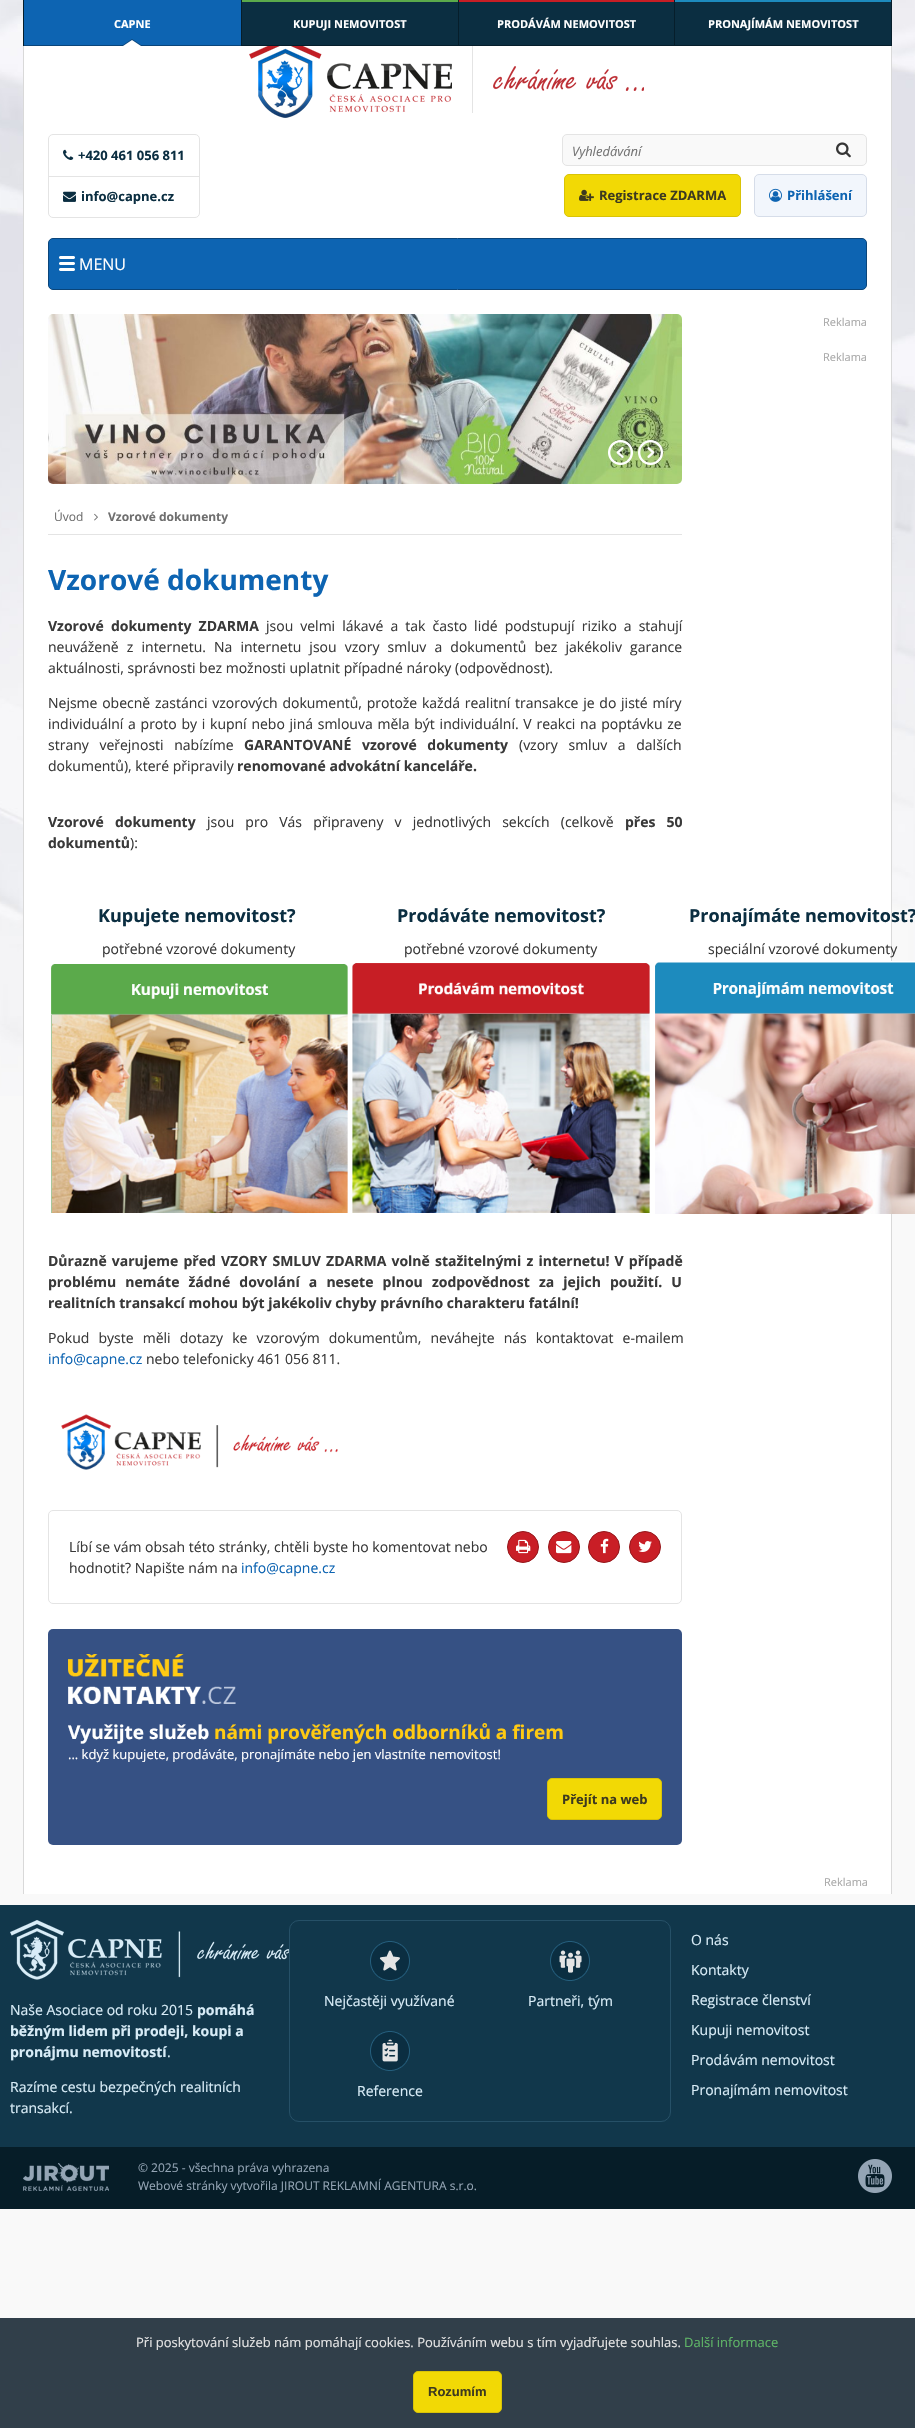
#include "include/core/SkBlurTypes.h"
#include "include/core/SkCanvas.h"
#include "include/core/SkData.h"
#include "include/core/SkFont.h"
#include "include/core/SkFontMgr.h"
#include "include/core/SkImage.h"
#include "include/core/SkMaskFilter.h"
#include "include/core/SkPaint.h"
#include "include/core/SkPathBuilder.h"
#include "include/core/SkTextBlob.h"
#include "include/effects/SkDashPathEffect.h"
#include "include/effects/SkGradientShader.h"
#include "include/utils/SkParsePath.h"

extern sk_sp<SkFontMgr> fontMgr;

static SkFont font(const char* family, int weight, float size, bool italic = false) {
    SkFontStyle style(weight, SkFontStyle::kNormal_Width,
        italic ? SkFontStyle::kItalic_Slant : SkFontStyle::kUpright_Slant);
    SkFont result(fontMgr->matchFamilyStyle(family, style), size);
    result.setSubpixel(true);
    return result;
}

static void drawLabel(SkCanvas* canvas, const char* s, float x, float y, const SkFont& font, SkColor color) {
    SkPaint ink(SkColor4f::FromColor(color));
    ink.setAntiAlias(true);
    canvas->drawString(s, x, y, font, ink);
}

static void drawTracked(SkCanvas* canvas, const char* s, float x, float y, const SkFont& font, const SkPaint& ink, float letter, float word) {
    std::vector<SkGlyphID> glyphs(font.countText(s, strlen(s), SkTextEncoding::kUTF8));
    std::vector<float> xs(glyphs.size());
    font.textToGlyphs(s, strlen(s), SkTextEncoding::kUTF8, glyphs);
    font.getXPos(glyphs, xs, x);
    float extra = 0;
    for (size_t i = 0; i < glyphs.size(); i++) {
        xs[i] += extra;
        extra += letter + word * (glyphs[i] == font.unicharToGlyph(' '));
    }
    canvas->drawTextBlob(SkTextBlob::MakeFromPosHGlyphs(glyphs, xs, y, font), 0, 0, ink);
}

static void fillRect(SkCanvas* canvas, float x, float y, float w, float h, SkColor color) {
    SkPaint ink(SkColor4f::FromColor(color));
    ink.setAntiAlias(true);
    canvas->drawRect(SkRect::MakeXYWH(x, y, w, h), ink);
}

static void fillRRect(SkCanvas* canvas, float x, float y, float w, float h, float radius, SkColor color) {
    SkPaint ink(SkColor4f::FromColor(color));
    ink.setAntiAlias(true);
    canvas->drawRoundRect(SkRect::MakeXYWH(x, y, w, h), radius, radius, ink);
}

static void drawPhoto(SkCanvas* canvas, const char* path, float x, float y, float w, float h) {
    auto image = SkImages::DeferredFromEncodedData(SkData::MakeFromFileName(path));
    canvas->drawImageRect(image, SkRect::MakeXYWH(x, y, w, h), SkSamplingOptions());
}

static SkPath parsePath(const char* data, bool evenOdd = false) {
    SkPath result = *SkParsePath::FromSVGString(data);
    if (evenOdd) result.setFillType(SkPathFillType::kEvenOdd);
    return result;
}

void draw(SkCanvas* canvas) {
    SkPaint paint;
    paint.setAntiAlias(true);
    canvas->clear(0xFFF9F9F9);
    fillRect(canvas, 0, 2318, 915, 110, 0xFF313F4A);
    drawPhoto(canvas, "assets/img1.png", 0, 0, 915, 1096);
    fillRect(canvas, 242, 2, 649, 43, 0xFF0B2E41);
    fillRect(canvas, 891, 0, 1, 46, 0xFF061E2B);
    fillRect(canvas, 23, 0, 1, 46, 0xFF061E2B);
    fillRect(canvas, 24, 0, 217, 45, 0xFF0D64B2);
    fillRect(canvas, 24, 45, 217, 1, 0xFF0A457A);
    SkFont font1 = font("Open Sans", 700, 11);
    drawLabel(canvas, "CAPNE", 114, 28, font1, 0xFFFFFFFF);
    paint.setColor(0xFF0A457A);
    canvas->drawPath(parsePath("M141 45H123L132 39Z"), paint);
    paint.setColor(0xFFFFFFFF);
    canvas->drawPath(parsePath("M141 46H123L132 40Z"), paint);
    fillRect(canvas, 241, 0, 1, 46, 0xFF061E2B);
    fillRect(canvas, 242, 0, 216, 2, 0xFF5BAA4B);
    drawLabel(canvas, "KUPUJI NEMOVITOST", 293, 28, font1, 0xFFFFFFFF);
    fillRect(canvas, 242, 45, 649, 1, 0xFF061E2B);
    fillRect(canvas, 458, 0, 1, 46, 0xFF061E2B);
    fillRect(canvas, 459, 0, 215, 2, 0xFFC71E25);
    drawLabel(canvas, "PRODÁVÁM NEMOVITOST", 497, 28, font1, 0xFFFFFFFF);
    fillRect(canvas, 674, 0, 1, 46, 0xFF061E2B);
    fillRect(canvas, 675, 0, 216, 2, 0xFF1D8BBE);
    drawLabel(canvas, "PRONAJÍMÁM NEMOVITOST", 708, 28, font1, 0xFFFFFFFF);
    fillRect(canvas, 24, 46, 867, 1848, 0xFFFFFFFF);
    drawPhoto(canvas, "assets/img2.png", 249, 46, 395, 72);
    paint.setStroke(true);
    paint.setStrokeWidth(1);
    paint.setColor(0xFFE4E4E4);
    canvas->drawRoundRect(SkRect::MakeXYWH(48.5f, 134.5f, 151, 83), 4.5f, 4.5f, paint);
    drawPhoto(canvas, "assets/img3.png", 63, 149, 11, 11);
    SkFont font2 = font("Open Sans", 700, 13);
    drawLabel(canvas, "+420 461 056 811", 78, 160, font2, 0xFF0B2E41);
    fillRect(canvas, 49, 176, 150, 1, 0xFFE4E4E4);
    drawPhoto(canvas, "assets/img4.png", 63, 191, 13, 11);
    drawLabel(canvas, "info@capne.cz", 81, 201, font2, 0xFF0B2E41);
    paint.setStroke(false);
    paint.setColor(0xFFF9F9F9);
    canvas->drawRoundRect(SkRect::MakeXYWH(562.5f, 134.5f, 304, 31), 4.5f, 4.5f, paint);
    paint.setStroke(true);
    paint.setColor(0xFFE4E4E4);
    canvas->drawRoundRect(SkRect::MakeXYWH(562.5f, 134.5f, 304, 31), 4.5f, 4.5f, paint);
    SkFont font3 = font("Open Sans", 400, 13, true);
    drawLabel(canvas, "Vyhledávání", 572, 156, font3, 0xFF757575);
    drawPhoto(canvas, "assets/img5.png", 836, 142, 15, 16);
    paint.setStroke(false);
    paint.setColor(0xFFF2D905);
    canvas->drawRoundRect(SkRect::MakeXYWH(564.5f, 174.5f, 176, 42), 4.5f, 4.5f, paint);
    paint.setStroke(true);
    paint.setColor(0xFFD9C307);
    canvas->drawRoundRect(SkRect::MakeXYWH(564.5f, 174.5f, 176, 42), 4.5f, 4.5f, paint);
    drawPhoto(canvas, "assets/img6.png", 579, 189, 15, 12);
    drawLabel(canvas, "Registrace ZDARMA", 599, 200, font2, 0xFF3D3A1F);
    paint.setStroke(false);
    paint.setColor(0xFFF2F6FC);
    canvas->drawRoundRect(SkRect::MakeXYWH(754.5f, 174.5f, 112, 42), 4.5f, 4.5f, paint);
    paint.setStroke(true);
    paint.setColor(0xFFD6DDE9);
    canvas->drawRoundRect(SkRect::MakeXYWH(754.5f, 174.5f, 112, 42), 4.5f, 4.5f, paint);
    drawPhoto(canvas, "assets/img7.png", 769, 188, 13, 14);
    drawLabel(canvas, "Přihlášení", 787, 200, font2, 0xFF0D64B2);
    paint.setStroke(false);
    paint.setColor(0xFF0D64B2);
    canvas->drawRoundRect(SkRect::MakeXYWH(48.5f, 238.5f, 818, 51), 4.5f, 4.5f, paint);
    paint.setStroke(true);
    paint.setColor(0xFF0A457A);
    canvas->drawRoundRect(SkRect::MakeXYWH(48.5f, 238.5f, 818, 51), 4.5f, 4.5f, paint);
    drawPhoto(canvas, "assets/img8.png", 59, 256, 16, 15);
    SkFont font4 = font("Open Sans", 400, 16);
    drawLabel(canvas, "MENU", 79, 270, font4, 0xFFFFFFFF);
    fillRect(canvas, 891, 46, 1, 1848, 0xFFD9D9D9);
    fillRect(canvas, 23, 46, 1, 1848, 0xFFD9D9D9);
    SkFont font5 = font("Open Sans", 400, 11);
    drawLabel(canvas, "Reklama", 823, 326, font5, 0xFFA8A8A8);
    drawLabel(canvas, "Reklama", 823, 361, font5, 0xFFA8A8A8);
    drawPhoto(canvas, "assets/img9.png", 48, 314, 634, 170);
    drawPhoto(canvas, "assets/img10.png", 608, 440, 25, 25);
    drawPhoto(canvas, "assets/img11.png", 638, 440, 25, 25);
    fillRect(canvas, 48, 534, 634, 1, 0xFFE4E4E4);
    SkFont font6 = font("Open Sans", 400, 12);
    drawLabel(canvas, "Úvod", 54, 521, font6, 0xFF6F6F6F);
    drawPhoto(canvas, "assets/img12.png", 94, 513, 4, 8);
    SkFont font7 = font("Open Sans", 700, 12);
    drawLabel(canvas, "Vzorové dokumenty", 108, 521, font7, 0xFF6F6F6F);
    SkFont font8 = font("Open Sans", 700, 28);
    drawLabel(canvas, "Vzorové dokumenty", 48, 590, font8, 0xFF0D64B2);
    SkFont font9 = font("Open Sans", 700, 14);
    paint.setStroke(false);
    paint.setColor(0xFF393939);
    drawTracked(canvas, "Vzorové dokumenty ZDARMA", 48, 631, font9, paint, 0, 3.4f);
    SkFont font10 = font("Open Sans", 400, 14);
    drawTracked(canvas, "jsou velmi lákavé a tak často lidé podstupují riziko a stahují", 266, 631, font10, paint, 0, 3.4f);
    drawTracked(canvas, "neuváženě z internetu. Na internetu jsou vzory smluv a dokumentů bez jakékoliv garance", 48, 652, font10, paint, 0, 4.5f);
    drawLabel(canvas, "aktuálnosti, správnosti bez možnosti uplatnit případné nároky (odpovědnost).", 48, 673, font10, 0xFF393939);
    drawTracked(canvas, "Nejsme obecně zastánci vzorových dokumentů, protože každá realitní transakce je do jisté míry", 48, 708, font10, paint, 0, 1.1f);
    drawTracked(canvas, "individuální a proto by i kupní nebo jiná smlouva měla být individuální. V reakci na poptávku ze", 48, 729, font10, paint, 0, 1.1f);
    drawTracked(canvas, "strany veřejnosti nabízíme", 48, 750, font10, paint, 0, 7);
    drawTracked(canvas, "GARANTOVANÉ vzorové dokumenty", 244, 750, font9, paint, 0, 7);
    drawTracked(canvas, "(vzory smluv a dalších", 519, 750, font10, paint, 0, 7);
    drawLabel(canvas, "dokumentů), které připravily", 48, 771, font10, 0xFF393939);
    drawLabel(canvas, "renomované advokátní kanceláře.", 237, 771, font9, 0xFF393939);
    drawTracked(canvas, "Vzorové dokumenty", 48, 827, font9, paint, 0, 7.5f);
    drawTracked(canvas, "jsou pro Vás připraveny v jednotlivých sekcích (celkově", 207, 827, font10, paint, 0, 7.5f);
    drawTracked(canvas, "přes 50", 625, 827, font9, paint, 0, 7.5f);
    drawLabel(canvas, "dokumentů", 48, 848, font9, 0xFF393939);
    drawLabel(canvas, "):", 130, 848, font10, 0xFF393939);
    SkFont font11 = font("Open Sans", 700, 18);
    drawLabel(canvas, "Kupujete nemovitost?", 98, 922, font11, 0xFF0B2E41);
    drawLabel(canvas, "potřebné vzorové dokumenty", 102, 954, font10, 0xFF393939);
    drawLabel(canvas, "Prodáváte nemovitost?", 397, 922, font11, 0xFF0B2E41);
    drawLabel(canvas, "potřebné vzorové dokumenty", 404, 954, font10, 0xFF393939);
    drawLabel(canvas, "Pronajímáte nemovitost?", 689, 922, font11, 0xFF0B2E41);
    drawLabel(canvas, "speciální vzorové dokumenty", 708, 954, font10, 0xFF393939);
    drawPhoto(canvas, "assets/img13.png", 51, 964, 297, 249);
    drawPhoto(canvas, "assets/img14.png", 352, 963, 298, 250);
    drawPhoto(canvas, "assets/img15.png", 655, 961, 260, 253);
    drawTracked(canvas, "Důrazně varujeme před VZORY SMLUV ZDARMA volně stažitelnými z internetu! V případě", 48, 1266, font9, paint, 0, 1.5f);
    drawTracked(canvas, "problému nemáte žádné dovolání a nesete plnou zodpovědnost za jejich použití. U", 48, 1287, font9, paint, 0, 5.5f);
    drawLabel(canvas, "realitních transakcí mohou být jakékoliv chyby právního charakteru fatální!", 48, 1308, font9, 0xFF393939);
    drawTracked(canvas, "Pokud byste měli dotazy ke vzorovým dokumentům, neváhejte nás kontaktovat e-mailem", 48, 1343, font10, paint, 0, 5.5f);
    drawLabel(canvas, "info@capne.cz", 48, 1364, font10, 0xFF0D64B2);
    drawLabel(canvas, "nebo telefonicky 461 056 811.", 146, 1364, font10, 0xFF393939);
    drawPhoto(canvas, "assets/img16.png", 61, 1414, 277, 56);
    paint.setStroke(true);
    paint.setColor(0xFFE4E4E4);
    canvas->drawRoundRect(SkRect::MakeXYWH(48.5f, 1510.5f, 633, 93), 4.5f, 4.5f, paint);
    drawLabel(canvas, "Líbí se vám obsah této stránky, chtěli byste ho komentovat nebo", 69, 1552, font10, 0xFF393939);
    drawLabel(canvas, "hodnotit? Napište nám na", 69, 1573, font10, 0xFF393939);
    drawLabel(canvas, "info@capne.cz", 241, 1573, font10, 0xFF0D64B2);
    paint.setStroke(false);
    paint.setColor(0xFFC91E26);
    canvas->drawCircle(523, 1547, 15.5f, paint);
    paint.setStroke(true);
    paint.setColor(0xFF94161A);
    canvas->drawCircle(523, 1547, 15.5f, paint);
    drawPhoto(canvas, "assets/img17.png", 516, 1539, 15, 15);
    paint.setStroke(false);
    paint.setColor(0xFFC91E26);
    canvas->drawCircle(564, 1547, 15.5f, paint);
    paint.setStroke(true);
    paint.setColor(0xFF94161A);
    canvas->drawCircle(564, 1547, 15.5f, paint);
    drawPhoto(canvas, "assets/img18.png", 556, 1541, 16, 13);
    paint.setStroke(false);
    paint.setColor(0xFFC91E26);
    canvas->drawCircle(604, 1547, 15.5f, paint);
    paint.setStroke(true);
    paint.setColor(0xFF94161A);
    canvas->drawCircle(604, 1547, 15.5f, paint);
    drawPhoto(canvas, "assets/img19.png", 600, 1538, 9, 16);
    paint.setStroke(false);
    paint.setColor(0xFFC91E26);
    canvas->drawCircle(645, 1547, 15.5f, paint);
    paint.setStroke(true);
    paint.setColor(0xFF94161A);
    canvas->drawCircle(645, 1547, 15.5f, paint);
    drawPhoto(canvas, "assets/img20.png", 638, 1541, 14, 11);
    fillRRect(canvas, 48, 1629, 634, 216, 5, 0xFF365184);
    drawPhoto(canvas, "assets/img21.png", 68, 1654, 168, 50);
    SkFont font12 = font("Open Sans", 700, 19);
    drawLabel(canvas, "Využijte služeb", 68, 1739, font12, 0xFFFFFFFF);
    drawLabel(canvas, "námi prověřených odborníků a firem", 214, 1739, font12, 0xFFFFCA12);
    SkFont font13 = font("Open Sans", 400, 13);
    drawLabel(canvas, "... když kupujete, prodáváte, pronajímáte nebo jen vlastníte nemovitost!", 68, 1759, font13, 0xFFFFFFFF);
    paint.setStroke(false);
    paint.setColor(0xFFF2D905);
    canvas->drawRoundRect(SkRect::MakeXYWH(547.5f, 1778.5f, 114, 41), 4.5f, 4.5f, paint);
    paint.setStroke(true);
    paint.setColor(0xFFD9C307);
    canvas->drawRoundRect(SkRect::MakeXYWH(547.5f, 1778.5f, 114, 41), 4.5f, 4.5f, paint);
    drawLabel(canvas, "Přejít na web", 562, 1804, font2, 0xFF3D3A1F);
    drawLabel(canvas, "Reklama", 824, 1886, font5, 0xFFA8A8A8);
    fillRect(canvas, 0, 1905, 915, 242, 0xFF11374B);
    drawPhoto(canvas, "assets/img22.png", 10, 1920, 279, 60);
    drawLabel(canvas, "Naše Asociace od roku 2015", 10, 2015, font10, 0xFFD8ECF7);
    drawLabel(canvas, "pomáhá", 197, 2015, font9, 0xFFD8ECF7);
    drawLabel(canvas, "běžným lidem při prodeji, koupi a", 10, 2036, font9, 0xFFD8ECF7);
    drawLabel(canvas, "pronájmu nemovitostí", 10, 2057, font9, 0xFFD8ECF7);
    drawLabel(canvas, ".", 167, 2057, font10, 0xFFD8ECF7);
    drawLabel(canvas, "Razíme cestu bezpečných realitních", 10, 2092, font10, 0xFFD8ECF7);
    drawLabel(canvas, "transakcí.", 10, 2113, font10, 0xFFD8ECF7);
    paint.setColor(0xFF265067);
    canvas->drawRoundRect(SkRect::MakeXYWH(289.5f, 1920.5f, 381, 201), 9.5f, 9.5f, paint);
    drawPhoto(canvas, "assets/img23.png", 370, 1941, 40, 40);
    drawLabel(canvas, "Nejčastěji využívané", 324, 2006, font10, 0xFFD8ECF7);
    drawPhoto(canvas, "assets/img24.png", 550, 1941, 40, 40);
    drawLabel(canvas, "Partneři, tým", 528, 2006, font10, 0xFFD8ECF7);
    drawPhoto(canvas, "assets/img25.png", 370, 2031, 40, 40);
    drawLabel(canvas, "Reference", 357, 2096, font10, 0xFFD8ECF7);
    drawLabel(canvas, "O nás", 691, 1945, font10, 0xFFD8ECF7);
    drawLabel(canvas, "Kontakty", 691, 1975, font10, 0xFFD8ECF7);
    drawLabel(canvas, "Registrace členství", 691, 2005, font10, 0xFFD8ECF7);
    drawLabel(canvas, "Kupuji nemovitost", 691, 2035, font10, 0xFFD8ECF7);
    drawLabel(canvas, "Prodávám nemovitost", 691, 2065, font10, 0xFFD8ECF7);
    drawLabel(canvas, "Pronajímám nemovitost", 691, 2095, font10, 0xFFD8ECF7);
    fillRect(canvas, 0, 2147, 915, 62, 0xFF061D28);
    drawPhoto(canvas, "assets/img26.png", 23, 2163, 86, 28);
    drawLabel(canvas, "© 2025 - všechna práva vyhrazena", 138, 2172, font6, 0xFF94A5B5);
    drawLabel(canvas, "Webové stránky vytvořila JIROUT REKLAMNÍ AGENTURA s.r.o.", 138, 2190, font6, 0xFF94A5B5);
    drawPhoto(canvas, "assets/img27.png", 858, 2159, 34, 34);
    drawLabel(canvas, "Při poskytování služeb nám pomáhají cookies. Používáním webu s tím vyjadřujete souhlas.", 136, 2347, font13, 0xFFE4E4E4);
    drawLabel(canvas, "Další informace", 684, 2347, font13, 0xFF5FB667);
    paint.setStroke(false);
    paint.setColor(0xFFF2D905);
    canvas->drawRoundRect(SkRect::MakeXYWH(413.5f, 2371.5f, 88, 41), 4.5f, 4.5f, paint);
    paint.setStroke(true);
    paint.setColor(0xFFD9C307);
    canvas->drawRoundRect(SkRect::MakeXYWH(413.5f, 2371.5f, 88, 41), 4.5f, 4.5f, paint);
    SkFont font14 = font("Liberation Sans", 700, 13);
    drawLabel(canvas, "Rozumím", 428, 2396, font14, 0xFF3D3A1F);
}
